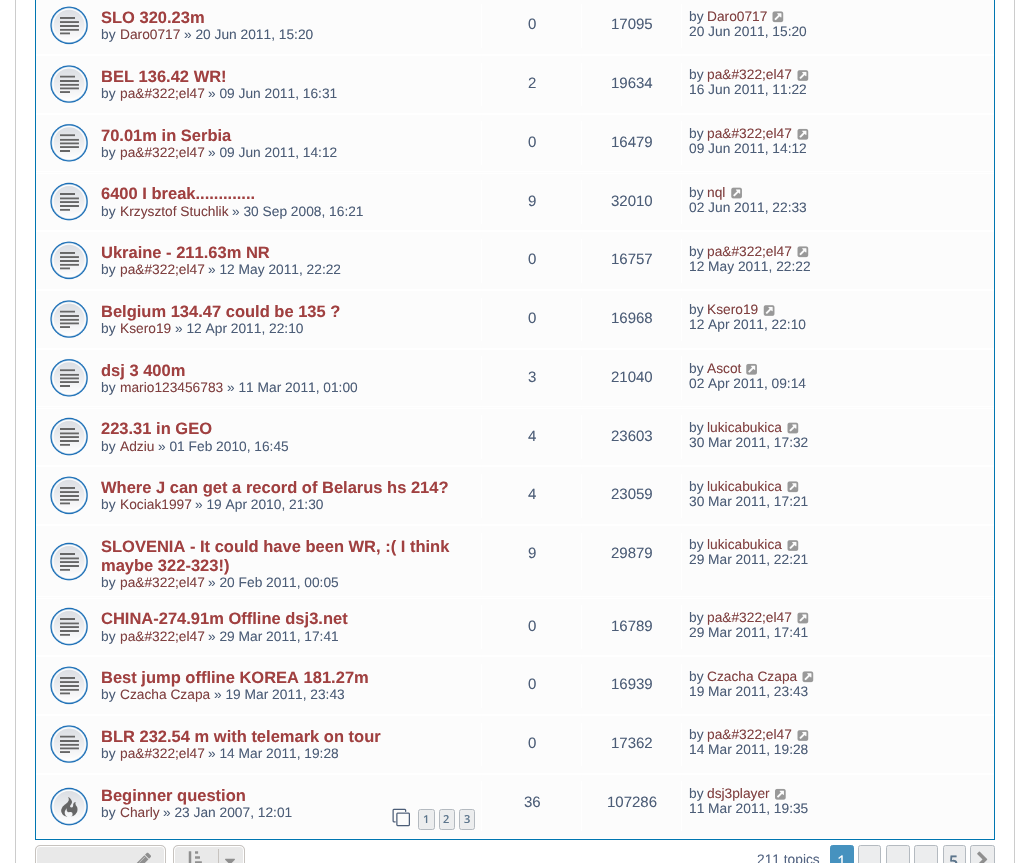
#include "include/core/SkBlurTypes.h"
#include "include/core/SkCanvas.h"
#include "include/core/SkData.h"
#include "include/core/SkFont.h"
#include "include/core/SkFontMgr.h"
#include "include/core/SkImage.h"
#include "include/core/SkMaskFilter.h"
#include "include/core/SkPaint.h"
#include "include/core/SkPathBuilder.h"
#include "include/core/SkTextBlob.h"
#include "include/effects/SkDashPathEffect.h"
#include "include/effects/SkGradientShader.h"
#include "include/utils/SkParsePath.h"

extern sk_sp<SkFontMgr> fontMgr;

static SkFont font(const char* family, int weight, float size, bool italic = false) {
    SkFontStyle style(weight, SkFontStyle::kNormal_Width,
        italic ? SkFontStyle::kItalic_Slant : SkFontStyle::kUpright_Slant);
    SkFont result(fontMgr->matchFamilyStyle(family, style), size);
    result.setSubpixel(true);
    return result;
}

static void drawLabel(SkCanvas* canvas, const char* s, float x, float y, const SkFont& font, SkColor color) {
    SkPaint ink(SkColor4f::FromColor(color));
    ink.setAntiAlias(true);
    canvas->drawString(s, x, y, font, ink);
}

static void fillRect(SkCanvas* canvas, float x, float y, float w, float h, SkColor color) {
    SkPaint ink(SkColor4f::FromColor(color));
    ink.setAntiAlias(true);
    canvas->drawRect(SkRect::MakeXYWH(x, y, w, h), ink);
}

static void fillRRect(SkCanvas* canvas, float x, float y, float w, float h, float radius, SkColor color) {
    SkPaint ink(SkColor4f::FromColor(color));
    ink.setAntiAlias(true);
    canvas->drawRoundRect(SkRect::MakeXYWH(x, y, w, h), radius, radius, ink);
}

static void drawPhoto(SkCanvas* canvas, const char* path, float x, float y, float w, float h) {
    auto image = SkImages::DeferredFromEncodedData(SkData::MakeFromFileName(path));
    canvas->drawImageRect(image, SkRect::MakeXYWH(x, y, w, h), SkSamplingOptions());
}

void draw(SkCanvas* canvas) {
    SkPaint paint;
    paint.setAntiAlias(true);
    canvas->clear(0xFFFFFFFF);
    paint.setStroke(true);
    paint.setStrokeWidth(1);
    paint.setColor(0xFFCCCCCC);
    canvas->drawRect(SkRect::MakeXYWH(15.5f, -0.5f, 999, 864), paint);
    fillRect(canvas, 35, 0, 960, 840, 0xFF0076B1);
    fillRect(canvas, 36, 0, 958, 54, 0xFFFCFCFC);
    fillRect(canvas, 36, 54, 958, 2, 0xFFFFFFFF);
    drawPhoto(canvas, "assets/img1.png", 50, 6, 38, 39);
    SkFont font1 = font("Liberation Sans", 700, 16.5f);
    drawLabel(canvas, "SLO 320.23m", 101, 23, font1, 0xFFA04040);
    SkFont font2 = font("Liberation Sans", 400, 13.75f);
    drawLabel(canvas, "by", 101, 39, font2, 0xFF4C5D77);
    drawLabel(canvas, "Daro0717", 120, 39, font2, 0xFF804040);
    drawLabel(canvas, "» 20 Jun 2011, 15:20", 184, 39, font2, 0xFF4C5D77);
    fillRect(canvas, 481, 4, 1, 44, 0xFFFFFFFF);
    SkFont font3 = font("Liberation Sans", 400, 15);
    drawLabel(canvas, "0", 528, 29, font3, 0xFF4C5D77);
    fillRect(canvas, 581, 4, 1, 44, 0xFFFFFFFF);
    drawLabel(canvas, "17095", 611, 29, font3, 0xFF4C5D77);
    fillRect(canvas, 681, 4, 1, 44, 0xFFFFFFFF);
    drawLabel(canvas, "by", 689, 21, font2, 0xFF4C5D77);
    drawLabel(canvas, "Daro0717", 707, 21, font2, 0xFF804040);
    drawPhoto(canvas, "assets/img2.png", 772, 11, 12, 12);
    drawLabel(canvas, "20 Jun 2011, 15:20", 689, 36, font2, 0xFF4C5D77);
    fillRect(canvas, 36, 56, 958, 57, 0xFFFCFCFC);
    fillRect(canvas, 36, 113, 958, 2, 0xFFFFFFFF);
    drawPhoto(canvas, "assets/img3.png", 50, 65, 38, 38);
    drawLabel(canvas, "BEL 136.42 WR!", 101, 82, font1, 0xFFA04040);
    drawLabel(canvas, "by", 101, 98, font2, 0xFF4C5D77);
    drawLabel(canvas, "pa&#322;el47", 120, 98, font2, 0xFF804040);
    drawLabel(canvas, "» 09 Jun 2011, 16:31", 208, 98, font2, 0xFF4C5D77);
    fillRect(canvas, 481, 63, 1, 43, 0xFFFFFFFF);
    drawLabel(canvas, "2", 528, 88, font3, 0xFF4C5D77);
    fillRect(canvas, 581, 63, 1, 43, 0xFFFFFFFF);
    drawLabel(canvas, "19634", 611, 88, font3, 0xFF4C5D77);
    fillRect(canvas, 681, 63, 1, 43, 0xFFFFFFFF);
    drawLabel(canvas, "by", 689, 79, font2, 0xFF4C5D77);
    drawLabel(canvas, "pa&#322;el47", 707, 79, font2, 0xFF804040);
    drawPhoto(canvas, "assets/img4.png", 797, 70, 12, 11);
    drawLabel(canvas, "16 Jun 2011, 11:22", 689, 94, font2, 0xFF4C5D77);
    fillRect(canvas, 36, 115, 958, 58, 0xFFFCFCFC);
    fillRect(canvas, 36, 171, 958, 1, 0xFFFFFFFF);
    drawPhoto(canvas, "assets/img5.png", 50, 123, 38, 39);
    drawLabel(canvas, "70.01m in Serbia", 101, 141, font1, 0xFFA04040);
    drawLabel(canvas, "by", 101, 157, font2, 0xFF4C5D77);
    drawLabel(canvas, "pa&#322;el47", 120, 157, font2, 0xFF804040);
    drawLabel(canvas, "» 09 Jun 2011, 14:12", 208, 157, font2, 0xFF4C5D77);
    fillRect(canvas, 481, 121, 1, 44, 0xFFFFFFFF);
    drawLabel(canvas, "0", 528, 147, font3, 0xFF4C5D77);
    fillRect(canvas, 581, 121, 1, 44, 0xFFFFFFFF);
    drawLabel(canvas, "16479", 611, 147, font3, 0xFF4C5D77);
    fillRect(canvas, 681, 121, 1, 44, 0xFFFFFFFF);
    drawLabel(canvas, "by", 689, 138, font2, 0xFF4C5D77);
    drawLabel(canvas, "pa&#322;el47", 707, 138, font2, 0xFF804040);
    drawPhoto(canvas, "assets/img6.png", 797, 128, 12, 12);
    drawLabel(canvas, "09 Jun 2011, 14:12", 689, 153, font2, 0xFF4C5D77);
    fillRect(canvas, 36, 174, 958, 56, 0xFFFCFCFC);
    fillRect(canvas, 36, 173, 958, 1, 0xFFFFFFFF);
    fillRect(canvas, 36, 230, 958, 2, 0xFFFFFFFF);
    drawPhoto(canvas, "assets/img7.png", 50, 182, 38, 39);
    drawLabel(canvas, "6400 I break.............", 101, 199, font1, 0xFFA04040);
    drawLabel(canvas, "by", 101, 216, font2, 0xFF4C5D77);
    drawLabel(canvas, "Krzysztof Stuchlik", 120, 216, font2, 0xFF804040);
    drawLabel(canvas, "» 30 Sep 2008, 16:21", 232, 216, font2, 0xFF4C5D77);
    fillRect(canvas, 481, 180, 1, 44, 0xFFFFFFFF);
    drawLabel(canvas, "9", 528, 206, font3, 0xFF4C5D77);
    fillRect(canvas, 581, 180, 1, 44, 0xFFFFFFFF);
    drawLabel(canvas, "32010", 611, 206, font3, 0xFF4C5D77);
    fillRect(canvas, 681, 180, 1, 44, 0xFFFFFFFF);
    drawLabel(canvas, "by", 689, 197, font2, 0xFF4C5D77);
    drawLabel(canvas, "nql", 707, 197, font2, 0xFF804040);
    drawPhoto(canvas, "assets/img8.png", 731, 187, 11, 12);
    drawLabel(canvas, "02 Jun 2011, 22:33", 689, 212, font2, 0xFF4C5D77);
    fillRect(canvas, 36, 232, 958, 57, 0xFFFCFCFC);
    fillRect(canvas, 36, 289, 958, 2, 0xFFFFFFFF);
    drawPhoto(canvas, "assets/img1.png", 50, 241, 38, 39);
    drawLabel(canvas, "Ukraine - 211.63m NR", 101, 258, font1, 0xFFA04040);
    drawLabel(canvas, "by", 101, 274, font2, 0xFF4C5D77);
    drawLabel(canvas, "pa&#322;el47", 120, 274, font2, 0xFF804040);
    drawLabel(canvas, "» 12 May 2011, 22:22", 208, 274, font2, 0xFF4C5D77);
    fillRect(canvas, 481, 239, 1, 44, 0xFFFFFFFF);
    drawLabel(canvas, "0", 528, 264, font3, 0xFF4C5D77);
    fillRect(canvas, 581, 239, 1, 44, 0xFFFFFFFF);
    drawLabel(canvas, "16757", 611, 264, font3, 0xFF4C5D77);
    fillRect(canvas, 681, 239, 1, 44, 0xFFFFFFFF);
    drawLabel(canvas, "by", 689, 256, font2, 0xFF4C5D77);
    drawLabel(canvas, "pa&#322;el47", 707, 256, font2, 0xFF804040);
    drawPhoto(canvas, "assets/img2.png", 797, 246, 12, 12);
    drawLabel(canvas, "12 May 2011, 22:22", 689, 271, font2, 0xFF4C5D77);
    fillRect(canvas, 36, 291, 958, 57, 0xFFFCFCFC);
    fillRect(canvas, 36, 348, 958, 2, 0xFFFFFFFF);
    drawPhoto(canvas, "assets/img3.png", 50, 300, 38, 38);
    drawLabel(canvas, "Belgium 134.47 could be 135 ?", 101, 317, font1, 0xFFA04040);
    drawLabel(canvas, "by", 101, 333, font2, 0xFF4C5D77);
    drawLabel(canvas, "Ksero19", 120, 333, font2, 0xFF804040);
    drawLabel(canvas, "» 12 Apr 2011, 22:10", 175, 333, font2, 0xFF4C5D77);
    fillRect(canvas, 481, 298, 1, 43, 0xFFFFFFFF);
    drawLabel(canvas, "0", 528, 323, font3, 0xFF4C5D77);
    fillRect(canvas, 581, 298, 1, 43, 0xFFFFFFFF);
    drawLabel(canvas, "16968", 611, 323, font3, 0xFF4C5D77);
    fillRect(canvas, 681, 298, 1, 43, 0xFFFFFFFF);
    drawLabel(canvas, "by", 689, 314, font2, 0xFF4C5D77);
    drawLabel(canvas, "Ksero19", 707, 314, font2, 0xFF804040);
    drawPhoto(canvas, "assets/img9.png", 763, 305, 12, 11);
    drawLabel(canvas, "12 Apr 2011, 22:10", 689, 329, font2, 0xFF4C5D77);
    fillRect(canvas, 36, 350, 958, 58, 0xFFFCFCFC);
    fillRect(canvas, 36, 406, 958, 1, 0xFFFFFFFF);
    drawPhoto(canvas, "assets/img5.png", 50, 358, 38, 39);
    drawLabel(canvas, "dsj 3 400m", 101, 376, font1, 0xFFA04040);
    drawLabel(canvas, "by", 101, 392, font2, 0xFF4C5D77);
    drawLabel(canvas, "mario123456783", 120, 392, font2, 0xFF804040);
    drawLabel(canvas, "» 11 Mar 2011, 01:00", 227, 392, font2, 0xFF4C5D77);
    fillRect(canvas, 481, 356, 1, 44, 0xFFFFFFFF);
    drawLabel(canvas, "3", 528, 382, font3, 0xFF4C5D77);
    fillRect(canvas, 581, 356, 1, 44, 0xFFFFFFFF);
    drawLabel(canvas, "21040", 611, 382, font3, 0xFF4C5D77);
    fillRect(canvas, 681, 356, 1, 44, 0xFFFFFFFF);
    drawLabel(canvas, "by", 689, 373, font2, 0xFF4C5D77);
    drawLabel(canvas, "Ascot", 707, 373, font2, 0xFF804040);
    drawPhoto(canvas, "assets/img10.png", 746, 363, 11, 12);
    drawLabel(canvas, "02 Apr 2011, 09:14", 689, 388, font2, 0xFF4C5D77);
    fillRect(canvas, 36, 409, 958, 56, 0xFFFCFCFC);
    fillRect(canvas, 36, 408, 958, 1, 0xFFFFFFFF);
    fillRect(canvas, 36, 465, 958, 2, 0xFFFFFFFF);
    drawPhoto(canvas, "assets/img7.png", 50, 417, 38, 39);
    drawLabel(canvas, "223.31 in GEO", 101, 434, font1, 0xFFA04040);
    drawLabel(canvas, "by", 101, 451, font2, 0xFF4C5D77);
    drawLabel(canvas, "Adziu", 120, 451, font2, 0xFF804040);
    drawLabel(canvas, "» 01 Feb 2010, 16:45", 158, 451, font2, 0xFF4C5D77);
    fillRect(canvas, 481, 415, 1, 44, 0xFFFFFFFF);
    drawLabel(canvas, "4", 528, 441, font3, 0xFF4C5D77);
    fillRect(canvas, 581, 415, 1, 44, 0xFFFFFFFF);
    drawLabel(canvas, "23603", 611, 441, font3, 0xFF4C5D77);
    fillRect(canvas, 681, 415, 1, 44, 0xFFFFFFFF);
    drawLabel(canvas, "by", 689, 432, font2, 0xFF4C5D77);
    drawLabel(canvas, "lukicabukica", 707, 432, font2, 0xFF804040);
    drawPhoto(canvas, "assets/img11.png", 787, 422, 12, 12);
    drawLabel(canvas, "30 Mar 2011, 17:32", 689, 447, font2, 0xFF4C5D77);
    fillRect(canvas, 36, 467, 958, 57, 0xFFFCFCFC);
    fillRect(canvas, 36, 524, 958, 2, 0xFFFFFFFF);
    drawPhoto(canvas, "assets/img1.png", 50, 476, 38, 39);
    drawLabel(canvas, "Where J can get a record of Belarus hs 214?", 101, 493, font1, 0xFFA04040);
    drawLabel(canvas, "by", 101, 509, font2, 0xFF4C5D77);
    drawLabel(canvas, "Kociak1997", 120, 509, font2, 0xFF804040);
    drawLabel(canvas, "» 19 Apr 2010, 21:30", 195, 509, font2, 0xFF4C5D77);
    fillRect(canvas, 481, 474, 1, 44, 0xFFFFFFFF);
    drawLabel(canvas, "4", 528, 499, font3, 0xFF4C5D77);
    fillRect(canvas, 581, 474, 1, 44, 0xFFFFFFFF);
    drawLabel(canvas, "23059", 611, 499, font3, 0xFF4C5D77);
    fillRect(canvas, 681, 474, 1, 44, 0xFFFFFFFF);
    drawLabel(canvas, "by", 689, 491, font2, 0xFF4C5D77);
    drawLabel(canvas, "lukicabukica", 707, 491, font2, 0xFF804040);
    drawPhoto(canvas, "assets/img2.png", 787, 481, 12, 12);
    drawLabel(canvas, "30 Mar 2011, 17:21", 689, 506, font2, 0xFF4C5D77);
    fillRect(canvas, 36, 526, 958, 72, 0xFFFCFCFC);
    fillRect(canvas, 36, 596, 958, 1, 0xFFFFFFFF);
    drawPhoto(canvas, "assets/img7.png", 50, 542, 38, 39);
    drawLabel(canvas, "SLOVENIA - It could have been WR, :( I think", 101, 552, font1, 0xFFA04040);
    drawLabel(canvas, "maybe 322-323!)", 101, 571, font1, 0xFFA04040);
    drawLabel(canvas, "by", 101, 587, font2, 0xFF4C5D77);
    drawLabel(canvas, "pa&#322;el47", 120, 587, font2, 0xFF804040);
    drawLabel(canvas, "» 20 Feb 2011, 00:05", 208, 587, font2, 0xFF4C5D77);
    fillRect(canvas, 481, 533, 1, 57, 0xFFFFFFFF);
    drawLabel(canvas, "9", 528, 558, font3, 0xFF4C5D77);
    fillRect(canvas, 581, 533, 1, 57, 0xFFFFFFFF);
    drawLabel(canvas, "29879", 611, 558, font3, 0xFF4C5D77);
    fillRect(canvas, 681, 533, 1, 57, 0xFFFFFFFF);
    drawLabel(canvas, "by", 689, 549, font2, 0xFF4C5D77);
    drawLabel(canvas, "lukicabukica", 707, 549, font2, 0xFF804040);
    drawPhoto(canvas, "assets/img4.png", 787, 540, 12, 11);
    drawLabel(canvas, "29 Mar 2011, 22:21", 689, 564, font2, 0xFF4C5D77);
    fillRect(canvas, 36, 599, 958, 56, 0xFFFCFCFC);
    fillRect(canvas, 36, 598, 958, 1, 0xFFFFFFFF);
    fillRect(canvas, 36, 655, 958, 2, 0xFFFFFFFF);
    drawPhoto(canvas, "assets/img12.png", 50, 607, 38, 39);
    drawLabel(canvas, "CHINA-274.91m Offline dsj3.net", 101, 624, font1, 0xFFA04040);
    drawLabel(canvas, "by", 101, 641, font2, 0xFF4C5D77);
    drawLabel(canvas, "pa&#322;el47", 120, 641, font2, 0xFF804040);
    drawLabel(canvas, "» 29 Mar 2011, 17:41", 208, 641, font2, 0xFF4C5D77);
    fillRect(canvas, 481, 605, 1, 44, 0xFFFFFFFF);
    drawLabel(canvas, "0", 528, 631, font3, 0xFF4C5D77);
    fillRect(canvas, 581, 605, 1, 44, 0xFFFFFFFF);
    drawLabel(canvas, "16789", 611, 631, font3, 0xFF4C5D77);
    fillRect(canvas, 681, 605, 1, 44, 0xFFFFFFFF);
    drawLabel(canvas, "by", 689, 622, font2, 0xFF4C5D77);
    drawLabel(canvas, "pa&#322;el47", 707, 622, font2, 0xFF804040);
    drawPhoto(canvas, "assets/img11.png", 797, 612, 12, 12);
    drawLabel(canvas, "29 Mar 2011, 17:41", 689, 637, font2, 0xFF4C5D77);
    fillRect(canvas, 36, 657, 958, 57, 0xFFFCFCFC);
    fillRect(canvas, 36, 714, 958, 2, 0xFFFFFFFF);
    drawPhoto(canvas, "assets/img1.png", 50, 666, 38, 39);
    drawLabel(canvas, "Best jump offline KOREA 181.27m", 101, 683, font1, 0xFFA04040);
    drawLabel(canvas, "by", 101, 699, font2, 0xFF4C5D77);
    drawLabel(canvas, "Czacha Czapa", 120, 699, font2, 0xFF804040);
    drawLabel(canvas, "» 19 Mar 2011, 23:43", 214, 699, font2, 0xFF4C5D77);
    fillRect(canvas, 481, 664, 1, 44, 0xFFFFFFFF);
    drawLabel(canvas, "0", 528, 689, font3, 0xFF4C5D77);
    fillRect(canvas, 581, 664, 1, 44, 0xFFFFFFFF);
    drawLabel(canvas, "16939", 611, 689, font3, 0xFF4C5D77);
    fillRect(canvas, 681, 664, 1, 44, 0xFFFFFFFF);
    drawLabel(canvas, "by", 689, 681, font2, 0xFF4C5D77);
    drawLabel(canvas, "Czacha Czapa", 707, 681, font2, 0xFF804040);
    drawPhoto(canvas, "assets/img2.png", 802, 671, 12, 12);
    drawLabel(canvas, "19 Mar 2011, 23:43", 689, 696, font2, 0xFF4C5D77);
    fillRect(canvas, 36, 716, 958, 57, 0xFFFCFCFC);
    fillRect(canvas, 36, 773, 958, 2, 0xFFFFFFFF);
    drawPhoto(canvas, "assets/img3.png", 50, 725, 38, 38);
    drawLabel(canvas, "BLR 232.54 m with telemark on tour", 101, 742, font1, 0xFFA04040);
    drawLabel(canvas, "by", 101, 758, font2, 0xFF4C5D77);
    drawLabel(canvas, "pa&#322;el47", 120, 758, font2, 0xFF804040);
    drawLabel(canvas, "» 14 Mar 2011, 19:28", 208, 758, font2, 0xFF4C5D77);
    fillRect(canvas, 481, 723, 1, 43, 0xFFFFFFFF);
    drawLabel(canvas, "0", 528, 748, font3, 0xFF4C5D77);
    fillRect(canvas, 581, 723, 1, 43, 0xFFFFFFFF);
    drawLabel(canvas, "17362", 611, 748, font3, 0xFF4C5D77);
    fillRect(canvas, 681, 723, 1, 43, 0xFFFFFFFF);
    drawLabel(canvas, "by", 689, 739, font2, 0xFF4C5D77);
    drawLabel(canvas, "pa&#322;el47", 707, 739, font2, 0xFF804040);
    drawPhoto(canvas, "assets/img4.png", 797, 730, 12, 11);
    drawLabel(canvas, "14 Mar 2011, 19:28", 689, 754, font2, 0xFF4C5D77);
    fillRect(canvas, 36, 775, 958, 63, 0xFFFCFCFC);
    fillRect(canvas, 36, 838, 958, 1, 0xFFFFFFFF);
    drawPhoto(canvas, "assets/img13.png", 50, 787, 38, 39);
    drawLabel(canvas, "Beginner question", 101, 801, font1, 0xFFA04040);
    drawLabel(canvas, "by", 101, 817, font2, 0xFF4C5D77);
    drawLabel(canvas, "Charly", 120, 817, font2, 0xFF804040);
    drawLabel(canvas, "» 23 Jan 2007, 12:01", 163, 817, font2, 0xFF4C5D77);
    drawPhoto(canvas, "assets/img14.png", 392, 808, 18, 19);
    paint.setStroke(false);
    paint.setColor(0xFFECEDEE);
    canvas->drawRoundRect(SkRect::MakeXYWH(418.5f, 809.5f, 16, 20), 2, 2, paint);
    paint.setStroke(true);
    paint.setColor(0xFFB4BAC0);
    canvas->drawRoundRect(SkRect::MakeXYWH(418.5f, 809.5f, 16, 20), 2, 2, paint);
    SkFont font4 = font("Open Sans", 600, 11);
    drawLabel(canvas, "1", 423, 823, font4, 0xFF5C758C);
    paint.setStroke(false);
    paint.setColor(0xFFECEDEE);
    canvas->drawRoundRect(SkRect::MakeXYWH(439.5f, 809.5f, 15, 20), 2, 2, paint);
    paint.setStroke(true);
    paint.setColor(0xFFB4BAC0);
    canvas->drawRoundRect(SkRect::MakeXYWH(439.5f, 809.5f, 15, 20), 2, 2, paint);
    drawLabel(canvas, "2", 443, 823, font4, 0xFF5C758C);
    paint.setStroke(false);
    paint.setColor(0xFFECEDEE);
    canvas->drawRoundRect(SkRect::MakeXYWH(459.5f, 809.5f, 15, 20), 2, 2, paint);
    paint.setStroke(true);
    paint.setColor(0xFFB4BAC0);
    canvas->drawRoundRect(SkRect::MakeXYWH(459.5f, 809.5f, 15, 20), 2, 2, paint);
    drawLabel(canvas, "3", 464, 823, font4, 0xFF5C758C);
    fillRect(canvas, 481, 781, 1, 50, 0xFFFFFFFF);
    drawLabel(canvas, "36", 524, 807, font3, 0xFF4C5D77);
    fillRect(canvas, 581, 781, 1, 50, 0xFFFFFFFF);
    drawLabel(canvas, "107286", 607, 807, font3, 0xFF4C5D77);
    fillRect(canvas, 681, 781, 1, 50, 0xFFFFFFFF);
    drawLabel(canvas, "by", 689, 798, font2, 0xFF4C5D77);
    drawLabel(canvas, "dsj3player", 707, 798, font2, 0xFF804040);
    drawPhoto(canvas, "assets/img15.png", 775, 788, 11, 12);
    drawLabel(canvas, "11 Mar 2011, 19:35", 689, 813, font2, 0xFF4C5D77);
    fillRRect(canvas, 35, 845, 131, 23, 5, 0xFFE9E9E9);
    paint.setColor(0xFFFFFFFF);
    canvas->drawRoundRect(SkRect::MakeXYWH(36.5f, 846.5f, 128, 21), 3.5f, 3.5f, paint);
    paint.setColor(0xFFC7C3BF);
    canvas->drawRoundRect(SkRect::MakeXYWH(35.5f, 845.5f, 130, 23), 4.5f, 4.5f, paint);
    drawPhoto(canvas, "assets/img16.png", 136, 852, 15, 11);
    fillRRect(canvas, 173, 845, 72, 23, 5, 0xFFE9E9E9);
    paint.setColor(0xFFFFFFFF);
    canvas->drawRoundRect(SkRect::MakeXYWH(174.5f, 846.5f, 69, 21), 3.5f, 3.5f, paint);
    paint.setColor(0xFFC7C3BF);
    canvas->drawRoundRect(SkRect::MakeXYWH(173.5f, 845.5f, 71, 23), 4.5f, 4.5f, paint);
    drawPhoto(canvas, "assets/img17.png", 188, 851, 14, 12);
    fillRect(canvas, 218, 849, 1, 14, 0xFFC7C3BF);
    drawPhoto(canvas, "assets/img18.png", 225, 858, 10, 5);
    drawLabel(canvas, "211 topics", 757, 864, font2, 0xFF536482);
    paint.setStroke(false);
    paint.setColor(0xFF4692BF);
    canvas->drawRoundRect(SkRect::MakeXYWH(830.5f, 845.5f, 23, 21), 2, 2, paint);
    paint.setStroke(true);
    canvas->drawRoundRect(SkRect::MakeXYWH(830.5f, 845.5f, 23, 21), 2, 2, paint);
    SkFont font5 = font("Open Sans", 400, 16);
    drawLabel(canvas, "1", 837, 867, font5, 0xFFFFFFFF);
    paint.setStroke(false);
    paint.setColor(0xFFECEDEE);
    canvas->drawRoundRect(SkRect::MakeXYWH(858.5f, 845.5f, 22, 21), 2, 2, paint);
    paint.setStroke(true);
    paint.setColor(0xFFB4BAC0);
    canvas->drawRoundRect(SkRect::MakeXYWH(858.5f, 845.5f, 22, 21), 2, 2, paint);
    paint.setStroke(false);
    paint.setColor(0xFFECEDEE);
    canvas->drawRoundRect(SkRect::MakeXYWH(886.5f, 845.5f, 23, 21), 2, 2, paint);
    paint.setStroke(true);
    paint.setColor(0xFFB4BAC0);
    canvas->drawRoundRect(SkRect::MakeXYWH(886.5f, 845.5f, 23, 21), 2, 2, paint);
    paint.setStroke(false);
    paint.setColor(0xFFECEDEE);
    canvas->drawRoundRect(SkRect::MakeXYWH(914.5f, 845.5f, 23, 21), 2, 2, paint);
    paint.setStroke(true);
    paint.setColor(0xFFB4BAC0);
    canvas->drawRoundRect(SkRect::MakeXYWH(914.5f, 845.5f, 23, 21), 2, 2, paint);
    paint.setStroke(false);
    paint.setColor(0xFFECEDEE);
    canvas->drawRoundRect(SkRect::MakeXYWH(943.5f, 845.5f, 22, 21), 2, 2, paint);
    paint.setStroke(true);
    paint.setColor(0xFFB4BAC0);
    canvas->drawRoundRect(SkRect::MakeXYWH(943.5f, 845.5f, 22, 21), 2, 2, paint);
    SkFont font6 = font("Open Sans", 600, 16);
    drawLabel(canvas, "5", 949, 867, font6, 0xFF5C758C);
    paint.setStroke(false);
    paint.setColor(0xFFECEDEE);
    canvas->drawRoundRect(SkRect::MakeXYWH(970.5f, 845.5f, 24, 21), 2, 2, paint);
    paint.setStroke(true);
    paint.setColor(0xFFB4BAC0);
    canvas->drawRoundRect(SkRect::MakeXYWH(970.5f, 845.5f, 24, 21), 2, 2, paint);
    drawPhoto(canvas, "assets/img19.png", 977, 851, 11, 12);
}
